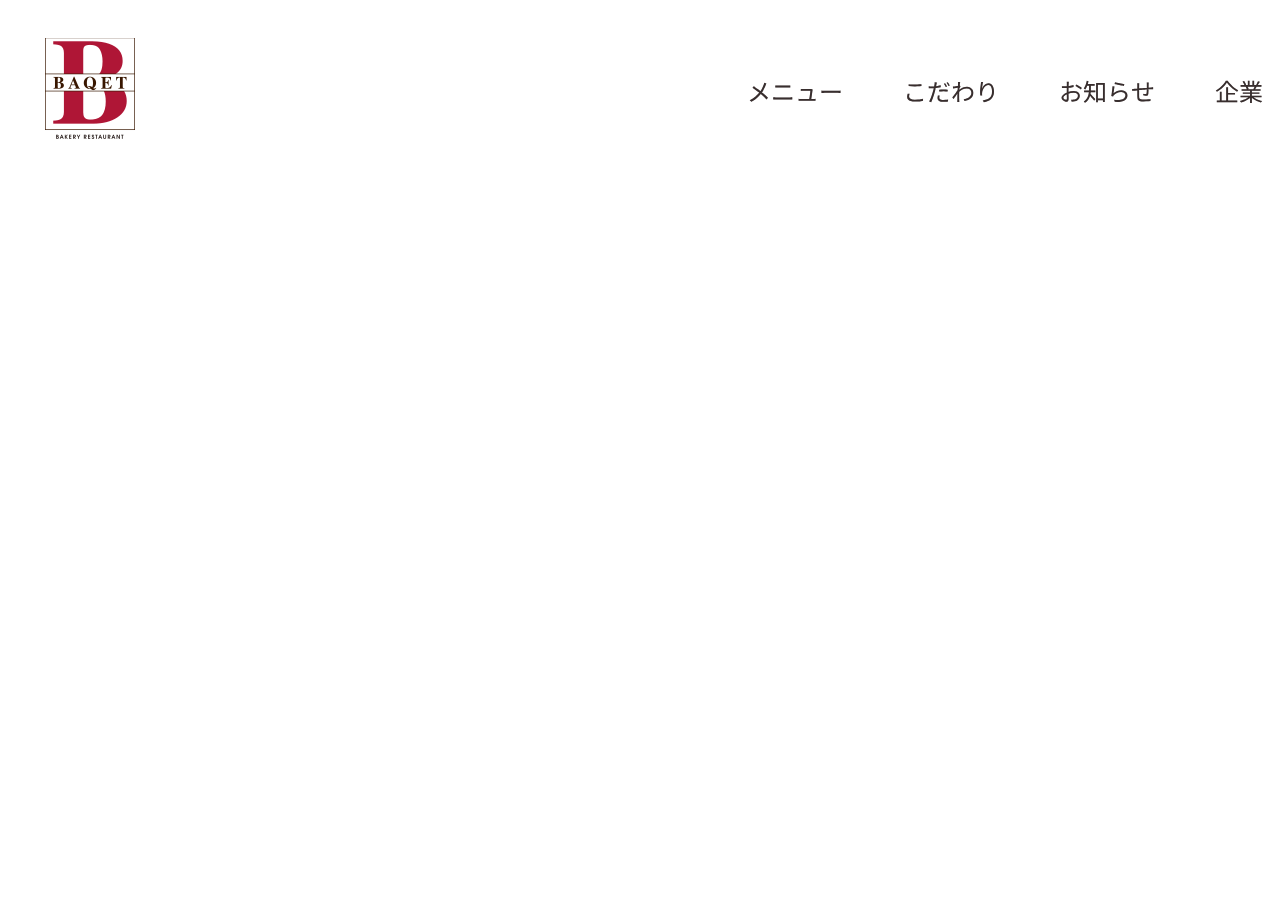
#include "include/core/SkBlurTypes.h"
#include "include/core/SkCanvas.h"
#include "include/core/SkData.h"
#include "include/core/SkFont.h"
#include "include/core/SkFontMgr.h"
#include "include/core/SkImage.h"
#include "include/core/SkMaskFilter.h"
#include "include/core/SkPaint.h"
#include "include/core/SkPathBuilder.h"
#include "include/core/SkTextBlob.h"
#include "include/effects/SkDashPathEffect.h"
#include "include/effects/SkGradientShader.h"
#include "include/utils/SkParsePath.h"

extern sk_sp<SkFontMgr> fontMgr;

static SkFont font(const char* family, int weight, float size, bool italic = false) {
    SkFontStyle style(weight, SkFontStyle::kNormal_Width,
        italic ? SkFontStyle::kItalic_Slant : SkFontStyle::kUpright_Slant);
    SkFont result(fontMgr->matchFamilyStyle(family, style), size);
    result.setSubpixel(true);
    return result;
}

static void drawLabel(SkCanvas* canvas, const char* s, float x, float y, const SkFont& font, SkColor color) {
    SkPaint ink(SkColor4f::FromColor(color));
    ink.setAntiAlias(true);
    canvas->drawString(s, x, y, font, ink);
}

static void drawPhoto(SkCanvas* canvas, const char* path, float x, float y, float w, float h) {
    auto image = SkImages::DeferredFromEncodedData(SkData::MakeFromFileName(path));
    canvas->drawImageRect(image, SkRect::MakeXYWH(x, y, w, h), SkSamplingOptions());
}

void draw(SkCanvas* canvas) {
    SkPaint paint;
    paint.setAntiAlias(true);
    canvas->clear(0xFFFFFFFF);
    drawPhoto(canvas, "assets/img1.png", 45, 38, 90, 101);
    SkFont font1 = font("Noto Sans JP", 400, 24);
    drawLabel(canvas, "メニュー", 747, 101, font1, 0xFF382E2E);
    drawLabel(canvas, "こだわり", 903, 101, font1, 0xFF382E2E);
    drawLabel(canvas, "お知らせ", 1059, 101, font1, 0xFF382E2E);
    drawLabel(canvas, "企業", 1215, 101, font1, 0xFF382E2E);
}
